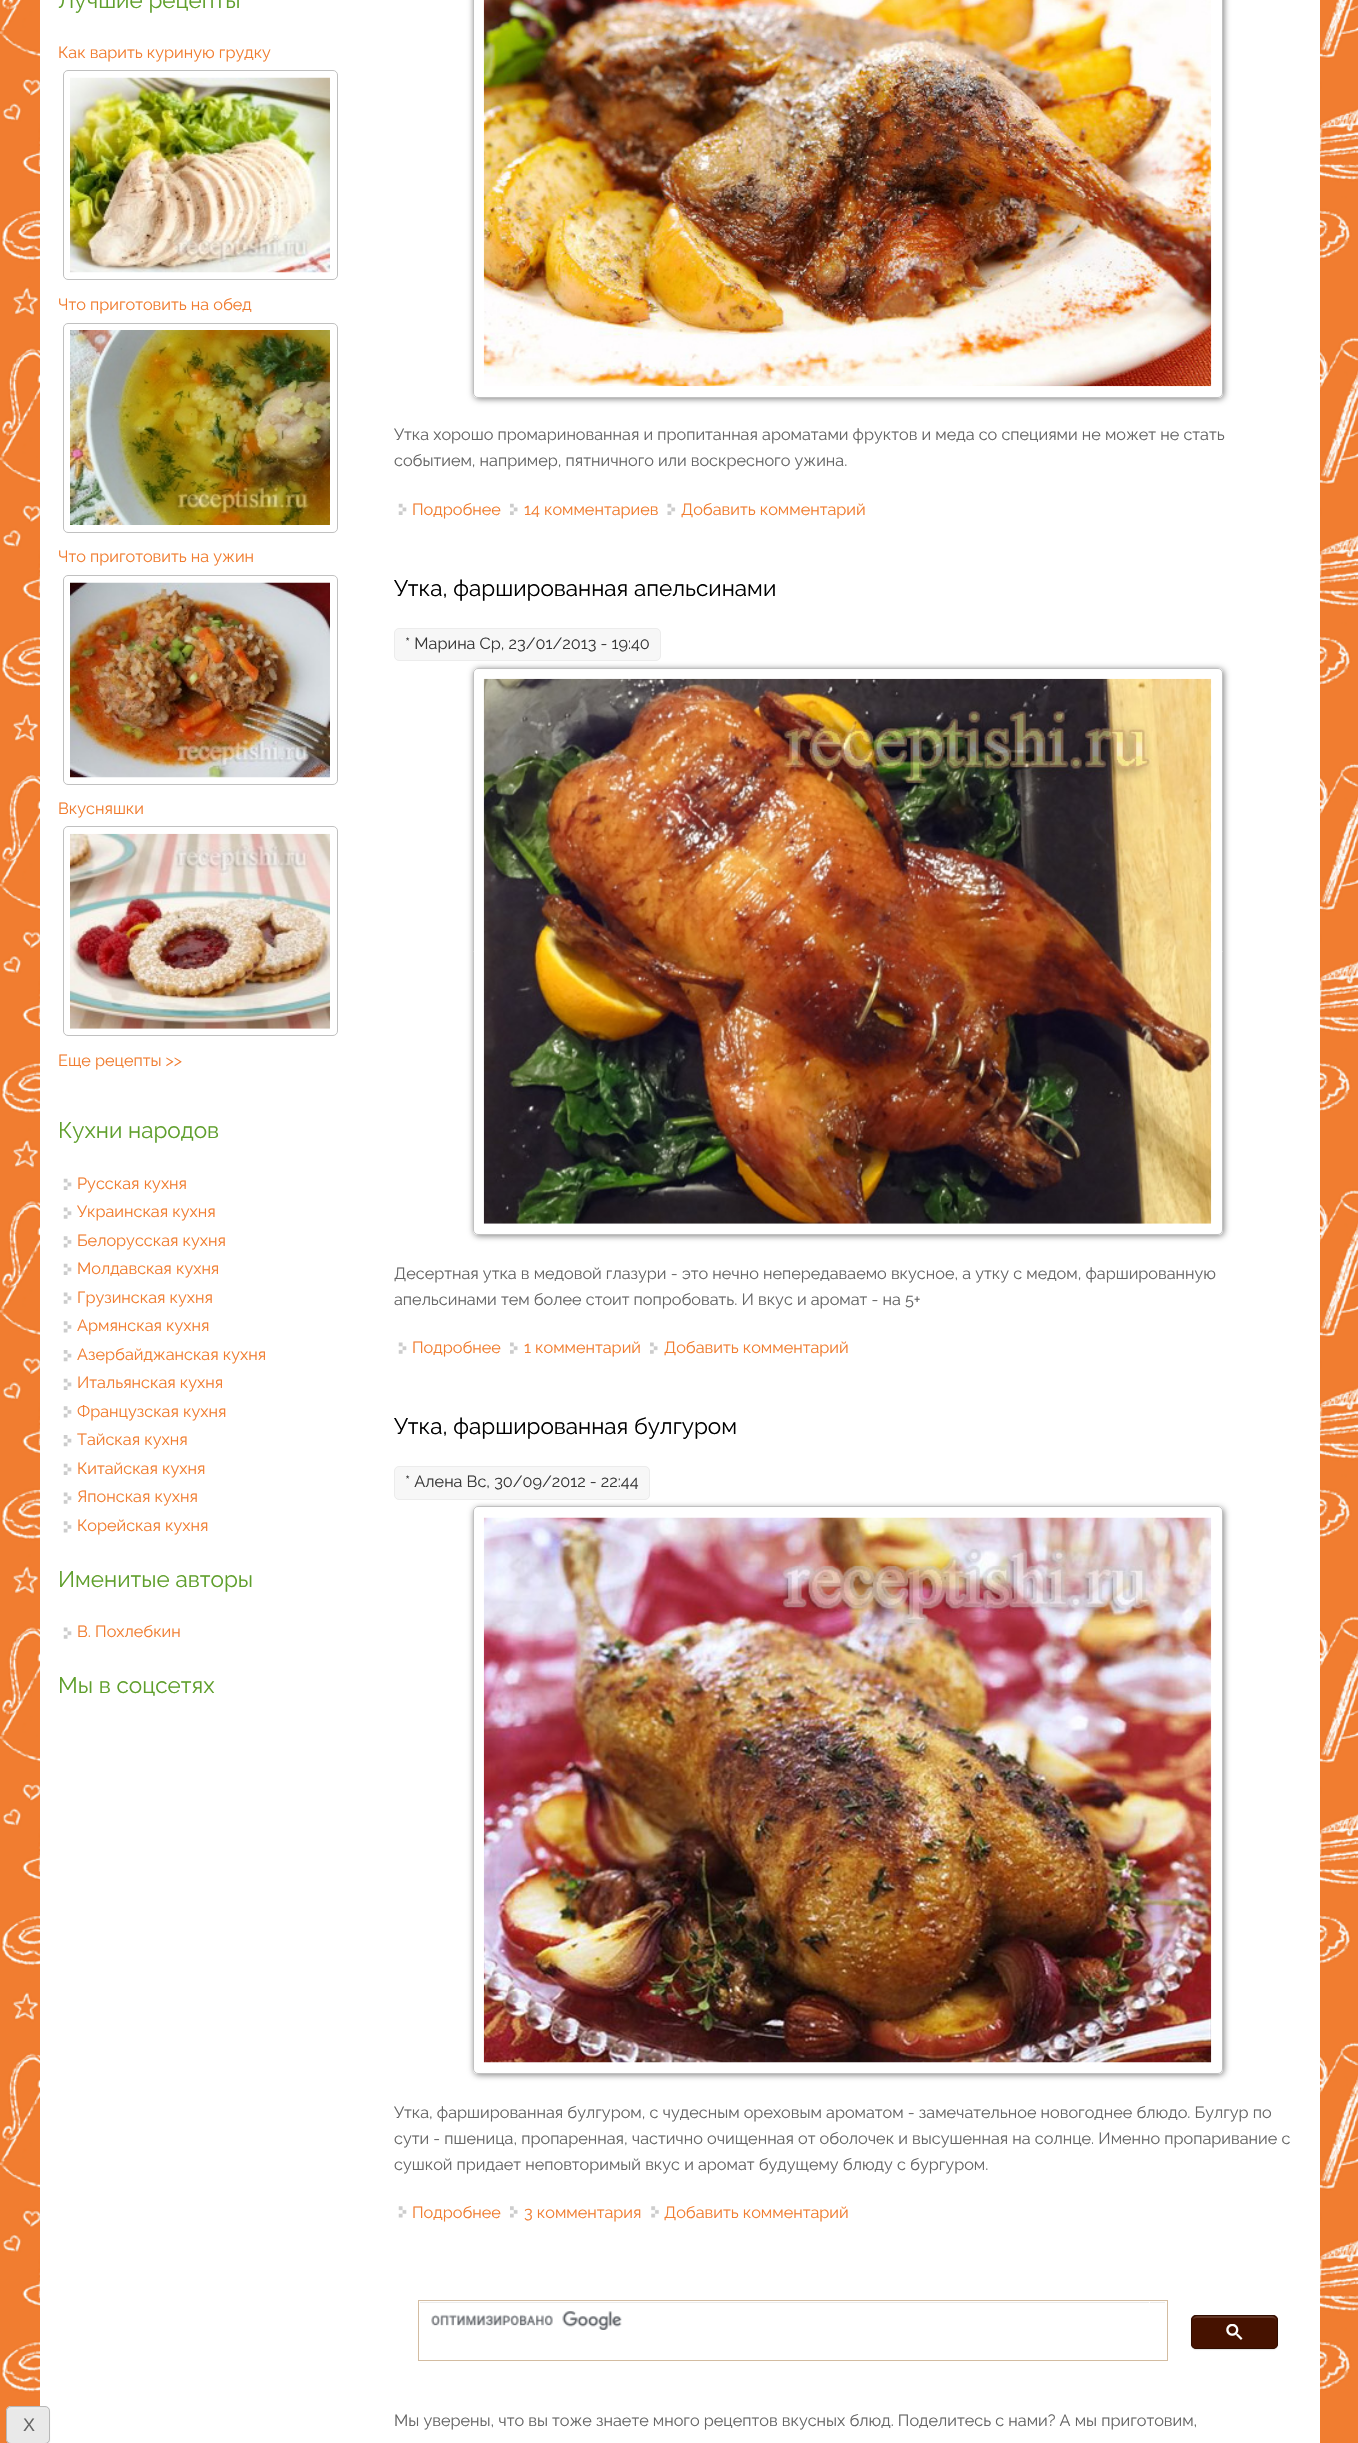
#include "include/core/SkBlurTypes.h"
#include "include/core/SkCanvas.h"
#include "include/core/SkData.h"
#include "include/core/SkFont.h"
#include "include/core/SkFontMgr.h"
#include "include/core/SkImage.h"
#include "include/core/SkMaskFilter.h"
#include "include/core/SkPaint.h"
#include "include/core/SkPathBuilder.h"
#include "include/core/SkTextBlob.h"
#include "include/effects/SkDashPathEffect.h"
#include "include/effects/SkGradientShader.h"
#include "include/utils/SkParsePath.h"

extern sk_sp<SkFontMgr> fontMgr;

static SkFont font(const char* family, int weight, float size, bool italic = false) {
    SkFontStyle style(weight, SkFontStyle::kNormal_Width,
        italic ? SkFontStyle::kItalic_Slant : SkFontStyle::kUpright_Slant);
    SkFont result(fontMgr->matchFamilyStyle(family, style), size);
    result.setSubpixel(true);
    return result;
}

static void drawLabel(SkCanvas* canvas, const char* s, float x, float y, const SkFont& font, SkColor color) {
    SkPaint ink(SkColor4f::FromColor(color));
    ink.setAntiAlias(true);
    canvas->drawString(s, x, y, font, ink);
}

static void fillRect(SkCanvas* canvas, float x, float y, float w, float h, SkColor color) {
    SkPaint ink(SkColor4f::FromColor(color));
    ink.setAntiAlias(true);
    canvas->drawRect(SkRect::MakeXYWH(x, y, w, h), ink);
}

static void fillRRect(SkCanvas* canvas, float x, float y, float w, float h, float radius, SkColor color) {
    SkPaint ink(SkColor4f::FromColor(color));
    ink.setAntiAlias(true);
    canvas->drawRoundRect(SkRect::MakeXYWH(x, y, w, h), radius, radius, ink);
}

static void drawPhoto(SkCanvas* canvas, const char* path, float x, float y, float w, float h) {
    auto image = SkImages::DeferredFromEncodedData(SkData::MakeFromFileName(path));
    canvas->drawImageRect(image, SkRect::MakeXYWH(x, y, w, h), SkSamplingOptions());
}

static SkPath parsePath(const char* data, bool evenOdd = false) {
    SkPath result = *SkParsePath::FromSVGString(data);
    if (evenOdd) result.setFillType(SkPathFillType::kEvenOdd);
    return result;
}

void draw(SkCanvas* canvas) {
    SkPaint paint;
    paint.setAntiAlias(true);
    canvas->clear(0xFFFFFFFF);
    drawPhoto(canvas, "assets/img1.png", 0, 0, 1358, 2443);
    fillRect(canvas, 40, 0, 1280, 2443, 0xFFFFFFFF);
    SkFont font1 = font("Raleway", 100, 22.5f);
    drawLabel(canvas, "Лучшие рецепты", 58, 8, font1, 0xFF5F9F2C);
    SkFont font2 = font("Raleway", 100, 16.25f);
    drawLabel(canvas, "Как варить куриную грудку", 58, 58, font2, 0xFFF17D30);
    paint.setStroke(true);
    paint.setStrokeWidth(1);
    paint.setColor(0xFFC0C0C0);
    canvas->drawRoundRect(SkRect::MakeXYWH(63.5f, 70.5f, 274, 209), 4.5f, 4.5f, paint);
    drawPhoto(canvas, "assets/img2.png", 70, 77, 260, 196);
    drawLabel(canvas, "Что приготовить на обед", 58, 310, font2, 0xFFF17D30);
    canvas->drawRoundRect(SkRect::MakeXYWH(63.5f, 323.5f, 274, 209), 4.5f, 4.5f, paint);
    drawPhoto(canvas, "assets/img3.png", 70, 330, 260, 195);
    drawLabel(canvas, "Что приготовить на ужин", 58, 562, font2, 0xFFF17D30);
    canvas->drawRoundRect(SkRect::MakeXYWH(63.5f, 575.5f, 274, 209), 4.5f, 4.5f, paint);
    drawPhoto(canvas, "assets/img4.png", 70, 582, 260, 196);
    drawLabel(canvas, "Вкусняшки", 58, 814, font2, 0xFFF17D30);
    canvas->drawRoundRect(SkRect::MakeXYWH(63.5f, 826.5f, 274, 209), 4.5f, 4.5f, paint);
    drawPhoto(canvas, "assets/img5.png", 70, 833, 260, 196);
    drawLabel(canvas, "Еще рецепты >>", 58, 1066, font2, 0xFFF17D30);
    drawLabel(canvas, "Кухни народов", 58, 1138, font1, 0xFF5F9F2C);
    drawPhoto(canvas, "assets/img6.png", 63, 1178, 9, 12);
    drawLabel(canvas, "Русская кухня", 77, 1189, font2, 0xFFF17D30);
    drawPhoto(canvas, "assets/img7.png", 63, 1207, 9, 12);
    drawLabel(canvas, "Украинская кухня", 77, 1217, font2, 0xFFF17D30);
    drawPhoto(canvas, "assets/img8.png", 63, 1236, 9, 12);
    drawLabel(canvas, "Белорусская кухня", 77, 1246, font2, 0xFFF17D30);
    drawPhoto(canvas, "assets/img6.png", 63, 1263, 9, 12);
    drawLabel(canvas, "Молдавская кухня", 77, 1274, font2, 0xFFF17D30);
    drawPhoto(canvas, "assets/img7.png", 63, 1292, 9, 12);
    drawLabel(canvas, "Грузинская кухня", 77, 1303, font2, 0xFFF17D30);
    drawPhoto(canvas, "assets/img8.png", 63, 1321, 9, 12);
    drawLabel(canvas, "Армянская кухня", 77, 1331, font2, 0xFFF17D30);
    drawPhoto(canvas, "assets/img9.png", 63, 1350, 9, 12);
    drawLabel(canvas, "Азербайджанская кухня", 77, 1360, font2, 0xFFF17D30);
    drawPhoto(canvas, "assets/img6.png", 63, 1378, 9, 12);
    drawLabel(canvas, "Итальянская кухня", 77, 1388, font2, 0xFFF17D30);
    drawPhoto(canvas, "assets/img8.png", 63, 1406, 9, 12);
    drawLabel(canvas, "Французская кухня", 77, 1417, font2, 0xFFF17D30);
    drawPhoto(canvas, "assets/img9.png", 63, 1435, 9, 12);
    drawLabel(canvas, "Тайская кухня", 77, 1445, font2, 0xFFF17D30);
    drawPhoto(canvas, "assets/img6.png", 63, 1463, 9, 12);
    drawLabel(canvas, "Китайская кухня", 77, 1474, font2, 0xFFF17D30);
    drawPhoto(canvas, "assets/img7.png", 63, 1492, 9, 12);
    drawLabel(canvas, "Японская кухня", 77, 1502, font2, 0xFFF17D30);
    drawPhoto(canvas, "assets/img8.png", 63, 1521, 9, 12);
    drawLabel(canvas, "Корейская кухня", 77, 1531, font2, 0xFFF17D30);
    drawLabel(canvas, "Именитые авторы", 58, 1587, font1, 0xFF5F9F2C);
    drawPhoto(canvas, "assets/img7.png", 63, 1627, 9, 12);
    drawLabel(canvas, "В. Похлебкин", 77, 1637, font2, 0xFFF17D30);
    drawLabel(canvas, "Мы в соцсетях", 58, 1693, font1, 0xFF5F9F2C);
    canvas->save();
    canvas->clipPath(parsePath("M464 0H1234V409H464ZM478-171H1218C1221-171 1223-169 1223-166V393C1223 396 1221 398 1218 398H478C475 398 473 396 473 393V-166C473-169 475-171 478-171Z", true), true);
    paint.setStroke(false);
    paint.setColor(0x80000000);
    paint.setMaskFilter(SkMaskFilter::MakeBlur(kNormal_SkBlurStyle, 3));
    canvas->drawRoundRect(SkRect::MakeXYWH(474, -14, 750, 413), 5, 5, paint);
    paint.setMaskFilter(nullptr);
    canvas->restore();
    paint.setStroke(true);
    paint.setColor(0xFFC0C0C0);
    canvas->drawRoundRect(SkRect::MakeXYWH(473.5f, -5.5f, 749, 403), 4.5f, 4.5f, paint);
    drawPhoto(canvas, "assets/img10.png", 483, 0, 729, 387);
    drawLabel(canvas, "Утка хорошо промаринованная и пропитанная ароматами фруктов и меда со специями не может не стать", 394, 440, font2, 0xFF666666);
    drawLabel(canvas, "событием, например, пятничного или воскресного ужина.", 394, 466, font2, 0xFF666666);
    drawPhoto(canvas, "assets/img11.png", 398, 503, 9, 12);
    drawLabel(canvas, "Подробнее", 412, 515, font2, 0xFFF17D30);
    drawPhoto(canvas, "assets/img12.png", 510, 503, 8, 12);
    drawLabel(canvas, "14 комментариев", 524, 515, font2, 0xFFF17D30);
    drawPhoto(canvas, "assets/img13.png", 667, 503, 9, 12);
    drawLabel(canvas, "Добавить комментарий", 681, 515, font2, 0xFFF17D30);
    drawLabel(canvas, "Утка, фаршированная апельсинами", 394, 596, font1, 0xFF000000);
    canvas->save();
    canvas->clipPath(parsePath("M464 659H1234V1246H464ZM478 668H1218C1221 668 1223 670 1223 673V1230C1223 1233 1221 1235 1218 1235H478C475 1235 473 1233 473 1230V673C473 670 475 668 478 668Z", true), true);
    paint.setStroke(false);
    paint.setColor(0x80000000);
    paint.setMaskFilter(SkMaskFilter::MakeBlur(kNormal_SkBlurStyle, 3));
    canvas->drawRoundRect(SkRect::MakeXYWH(474, 669, 750, 567), 5, 5, paint);
    paint.setMaskFilter(nullptr);
    canvas->restore();
    paint.setColor(0xFFF7F7F7);
    canvas->drawRoundRect(SkRect::MakeXYWH(394.5f, 628.5f, 266, 32), 4.5f, 4.5f, paint);
    paint.setStroke(true);
    paint.setColor(0xFFECECEC);
    canvas->drawRoundRect(SkRect::MakeXYWH(394.5f, 628.5f, 266, 32), 4.5f, 4.5f, paint);
    drawLabel(canvas, "* Марина Ср, 23/01/2013 - 19:40", 405, 649, font2, 0xFF383838);
    paint.setColor(0xFFC0C0C0);
    canvas->drawRoundRect(SkRect::MakeXYWH(473.5f, 668.5f, 749, 566), 4.5f, 4.5f, paint);
    drawPhoto(canvas, "assets/img14.png", 483, 678, 729, 546);
    drawLabel(canvas, "Десертная утка в медовой глазури - это нечно непередаваемо вкусное, а утку с медом, фаршированную", 394, 1279, font2, 0xFF666666);
    drawLabel(canvas, "апельсинами тем более стоит попробовать. И вкус и аромат - на 5+", 394, 1305, font2, 0xFF666666);
    drawPhoto(canvas, "assets/img15.png", 398, 1342, 9, 12);
    drawLabel(canvas, "Подробнее", 412, 1353, font2, 0xFFF17D30);
    drawPhoto(canvas, "assets/img16.png", 510, 1342, 8, 12);
    drawLabel(canvas, "1 комментарий", 524, 1353, font2, 0xFFF17D30);
    drawPhoto(canvas, "assets/img16.png", 650, 1342, 8, 12);
    drawLabel(canvas, "Добавить комментарий", 664, 1353, font2, 0xFFF17D30);
    drawLabel(canvas, "Утка, фаршированная булгуром", 394, 1434, font1, 0xFF000000);
    canvas->save();
    canvas->clipPath(parsePath("M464 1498H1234V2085H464ZM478 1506H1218C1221 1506 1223 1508 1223 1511V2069C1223 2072 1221 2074 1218 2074H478C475 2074 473 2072 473 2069V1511C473 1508 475 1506 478 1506Z", true), true);
    paint.setStroke(false);
    paint.setColor(0x80000000);
    paint.setMaskFilter(SkMaskFilter::MakeBlur(kNormal_SkBlurStyle, 3));
    canvas->drawRoundRect(SkRect::MakeXYWH(474, 1508, 750, 567), 5, 5, paint);
    paint.setMaskFilter(nullptr);
    canvas->restore();
    paint.setColor(0xFFF7F7F7);
    canvas->drawRoundRect(SkRect::MakeXYWH(394.5f, 1466.5f, 255, 33), 4.5f, 4.5f, paint);
    paint.setStroke(true);
    paint.setColor(0xFFECECEC);
    canvas->drawRoundRect(SkRect::MakeXYWH(394.5f, 1466.5f, 255, 33), 4.5f, 4.5f, paint);
    drawLabel(canvas, "* Алена Вс, 30/09/2012 - 22:44", 405, 1487, font2, 0xFF383838);
    paint.setColor(0xFFC0C0C0);
    canvas->drawRoundRect(SkRect::MakeXYWH(473.5f, 1506.5f, 749, 567), 4.5f, 4.5f, paint);
    drawPhoto(canvas, "assets/img17.png", 483, 1517, 729, 546);
    drawLabel(canvas, "Утка, фаршированная булгуром, с чудесным ореховым ароматом - замечательное новогоднее блюдо. Булгур по", 394, 2118, font2, 0xFF666666);
    drawLabel(canvas, "сути - пшеница, пропаренная, частично очищенная от оболочек и высушенная на солнце. Именно пропаривание с", 394, 2144, font2, 0xFF666666);
    drawLabel(canvas, "сушкой придает неповторимый вкус и аромат будущему блюду с бургуром.", 394, 2170, font2, 0xFF666666);
    drawPhoto(canvas, "assets/img18.png", 398, 2206, 9, 12);
    drawLabel(canvas, "Подробнее", 412, 2218, font2, 0xFFF17D30);
    drawPhoto(canvas, "assets/img19.png", 510, 2206, 8, 12);
    drawLabel(canvas, "3 комментария", 524, 2218, font2, 0xFFF17D30);
    drawPhoto(canvas, "assets/img20.png", 651, 2206, 8, 12);
    drawLabel(canvas, "Добавить комментарий", 664, 2218, font2, 0xFFF17D30);
    paint.setColor(0xFFD3BCA1);
    canvas->drawRect(SkRect::MakeXYWH(418.5f, 2300.5f, 749, 60), paint);
    fillRect(canvas, 420, 2302, 745, 1, 0xFFECECEC);
    fillRect(canvas, 1149, 2301, 1, 2, 0xFFFFFFFF);
    drawPhoto(canvas, "assets/img21.png", 431, 2311, 191, 19);
    paint.setStroke(false);
    paint.setColor(0x1A000000);
    paint.setMaskFilter(SkMaskFilter::MakeBlur(kNormal_SkBlurStyle, 0.5f));
    canvas->drawRoundRect(SkRect::MakeXYWH(1191, 2316, 87, 34), 5, 5, paint);
    paint.setMaskFilter(nullptr);
    fillRRect(canvas, 1191, 2315, 87, 34, 5, 0xFF461200);
    paint.setColor(0xFF623626);
    canvas->drawPath(parsePath("M1196 2318H1272C1275 2318 1276 2319 1276 2321V2320C1276 2318 1274 2316 1272 2316H1197C1195 2316 1194 2317 1193 2319Z"), paint);
    paint.setStroke(true);
    paint.setColor(0xFF300D00);
    canvas->drawRoundRect(SkRect::MakeXYWH(1191.5f, 2315.5f, 86, 33), 4.5f, 4.5f, paint);
    drawPhoto(canvas, "assets/img22.png", 1226, 2324, 17, 16);
    paint.setStroke(false);
    paint.setColor(0x1A000000);
    paint.setMaskFilter(SkMaskFilter::MakeBlur(kNormal_SkBlurStyle, 0.5f));
    canvas->drawRoundRect(SkRect::MakeXYWH(6, 2408, 44, 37), 5, 5, paint);
    paint.setMaskFilter(nullptr);
    fillRRect(canvas, 6, 2406, 44, 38, 5, 0xFFE9E9E9);
    paint.setColor(0xFFECECEC);
    canvas->drawPath(parsePath("M11 2409H39C46 2409 49 2409 49 2413V2412C49 2410 47 2408 45 2408H12C10 2408 8 2410 8 2412C8 2410 9 2409 11 2409ZM8 2440V2435Z", true), paint);
    paint.setStroke(true);
    paint.setColor(0xFFB8B8B8);
    canvas->drawRoundRect(SkRect::MakeXYWH(6.5f, 2406.5f, 43, 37), 4.5f, 4.5f, paint);
    SkFont font3 = font("Liberation Sans", 400, 18);
    drawLabel(canvas, "X", 23, 2431, font3, 0xFF666666);
    drawLabel(canvas, "Мы уверены, что вы тоже знаете много рецептов вкусных блюд. Поделитесь с нами? А мы приготовим,", 394, 2426, font2, 0xFF666666);
}
